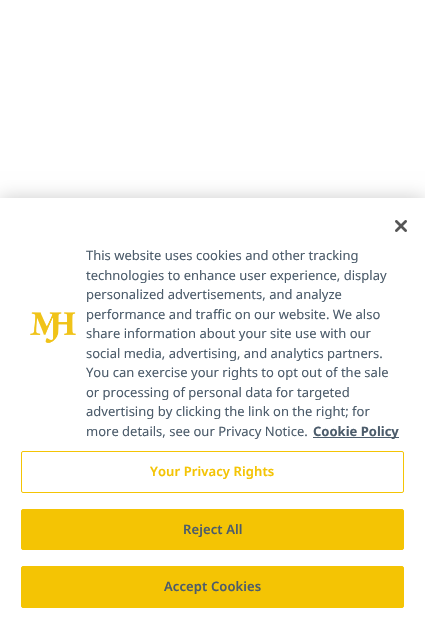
#include "include/core/SkBlurTypes.h"
#include "include/core/SkCanvas.h"
#include "include/core/SkData.h"
#include "include/core/SkFont.h"
#include "include/core/SkFontMgr.h"
#include "include/core/SkImage.h"
#include "include/core/SkMaskFilter.h"
#include "include/core/SkPaint.h"
#include "include/core/SkPathBuilder.h"
#include "include/core/SkTextBlob.h"
#include "include/effects/SkDashPathEffect.h"
#include "include/effects/SkGradientShader.h"
#include "include/utils/SkParsePath.h"

extern sk_sp<SkFontMgr> fontMgr;

static SkFont font(const char* family, int weight, float size, bool italic = false) {
    SkFontStyle style(weight, SkFontStyle::kNormal_Width,
        italic ? SkFontStyle::kItalic_Slant : SkFontStyle::kUpright_Slant);
    SkFont result(fontMgr->matchFamilyStyle(family, style), size);
    result.setSubpixel(true);
    return result;
}

static void drawLabel(SkCanvas* canvas, const char* s, float x, float y, const SkFont& font, SkColor color) {
    SkPaint ink(SkColor4f::FromColor(color));
    ink.setAntiAlias(true);
    canvas->drawString(s, x, y, font, ink);
}

static void drawTracked(SkCanvas* canvas, const char* s, float x, float y, const SkFont& font, const SkPaint& ink, float letter, float word) {
    std::vector<SkGlyphID> glyphs(font.countText(s, strlen(s), SkTextEncoding::kUTF8));
    std::vector<float> xs(glyphs.size());
    font.textToGlyphs(s, strlen(s), SkTextEncoding::kUTF8, glyphs);
    font.getXPos(glyphs, xs, x);
    float extra = 0;
    for (size_t i = 0; i < glyphs.size(); i++) {
        xs[i] += extra;
        extra += letter + word * (glyphs[i] == font.unicharToGlyph(' '));
    }
    canvas->drawTextBlob(SkTextBlob::MakeFromPosHGlyphs(glyphs, xs, y, font), 0, 0, ink);
}

static void fillRect(SkCanvas* canvas, float x, float y, float w, float h, SkColor color) {
    SkPaint ink(SkColor4f::FromColor(color));
    ink.setAntiAlias(true);
    canvas->drawRect(SkRect::MakeXYWH(x, y, w, h), ink);
}

static void drawPhoto(SkCanvas* canvas, const char* path, float x, float y, float w, float h) {
    auto image = SkImages::DeferredFromEncodedData(SkData::MakeFromFileName(path));
    canvas->drawImageRect(image, SkRect::MakeXYWH(x, y, w, h), SkSamplingOptions());
}

void draw(SkCanvas* canvas) {
    SkPaint paint;
    paint.setAntiAlias(true);
    canvas->clear(0xFFFFFFFF);
    paint.setColor(0x33000000);
    paint.setMaskFilter(SkMaskFilter::MakeBlur(kNormal_SkBlurStyle, 9));
    canvas->drawRect(SkRect::MakeXYWH(0, 198, 425, 426), paint);
    paint.setMaskFilter(nullptr);
    fillRect(canvas, 0, 198, 425, 426, 0xFFFFFFFF);
    drawPhoto(canvas, "assets/img1.png", 395, 220, 12, 12);
    drawPhoto(canvas, "assets/img2.png", 30, 312, 46, 31);
    SkFont font1 = font("Noto Sans", 400, 13);
    drawLabel(canvas, "This website uses cookies and other tracking", 86, 260, font1, 0xFF4C5C6B);
    drawLabel(canvas, "technologies to enhance user experience, display", 86, 280, font1, 0xFF4C5C6B);
    drawLabel(canvas, "personalized advertisements, and analyze", 86, 299, font1, 0xFF4C5C6B);
    drawLabel(canvas, "performance and traffic on our website. We also", 86, 319, font1, 0xFF4C5C6B);
    drawLabel(canvas, "share information about your site use with our", 86, 338, font1, 0xFF4C5C6B);
    drawLabel(canvas, "social media, advertising, and analytics partners.", 86, 358, font1, 0xFF4C5C6B);
    drawLabel(canvas, "You can exercise your rights to opt out of the sale", 86, 377, font1, 0xFF4C5C6B);
    drawLabel(canvas, "or processing of personal data for targeted", 86, 397, font1, 0xFF4C5C6B);
    drawLabel(canvas, "advertising by clicking the link on the right; for", 86, 416, font1, 0xFF4C5C6B);
    drawLabel(canvas, "more details, see our Privacy Notice.", 86, 436, font1, 0xFF4C5C6B);
    fillRect(canvas, 313, 437, 86, 1, 0xFF4C5C6B);
    SkFont font2 = font("Noto Sans", 700, 13);
    drawLabel(canvas, "Cookie Policy", 313, 436, font2, 0xFF4C5C6B);
    paint.setStroke(true);
    paint.setStrokeWidth(1);
    paint.setColor(0xFFF4C404);
    canvas->drawRoundRect(SkRect::MakeXYWH(21.5f, 451.5f, 382, 41), 1.5f, 1.5f, paint);
    SkFont font3 = font("Noto Sans", 600, 13);
    paint.setStroke(false);
    drawTracked(canvas, "Your Privacy Rights", 150, 476, font3, paint, 0.1f, 0);
    canvas->drawRoundRect(SkRect::MakeXYWH(21.5f, 509.5f, 382, 40), 1.5f, 1.5f, paint);
    paint.setStroke(true);
    canvas->drawRoundRect(SkRect::MakeXYWH(21.5f, 509.5f, 382, 40), 1.5f, 1.5f, paint);
    paint.setStroke(false);
    paint.setColor(0xFF4C5C6B);
    drawTracked(canvas, "Reject All", 183, 534, font3, paint, 0.1f, 0);
    paint.setColor(0xFFF4C404);
    canvas->drawRoundRect(SkRect::MakeXYWH(21.5f, 566.5f, 382, 41), 1.5f, 1.5f, paint);
    paint.setStroke(true);
    canvas->drawRoundRect(SkRect::MakeXYWH(21.5f, 566.5f, 382, 41), 1.5f, 1.5f, paint);
    paint.setStroke(false);
    paint.setColor(0xFF4C5C6B);
    drawTracked(canvas, "Accept Cookies", 164, 591, font3, paint, 0.1f, 0);
}
